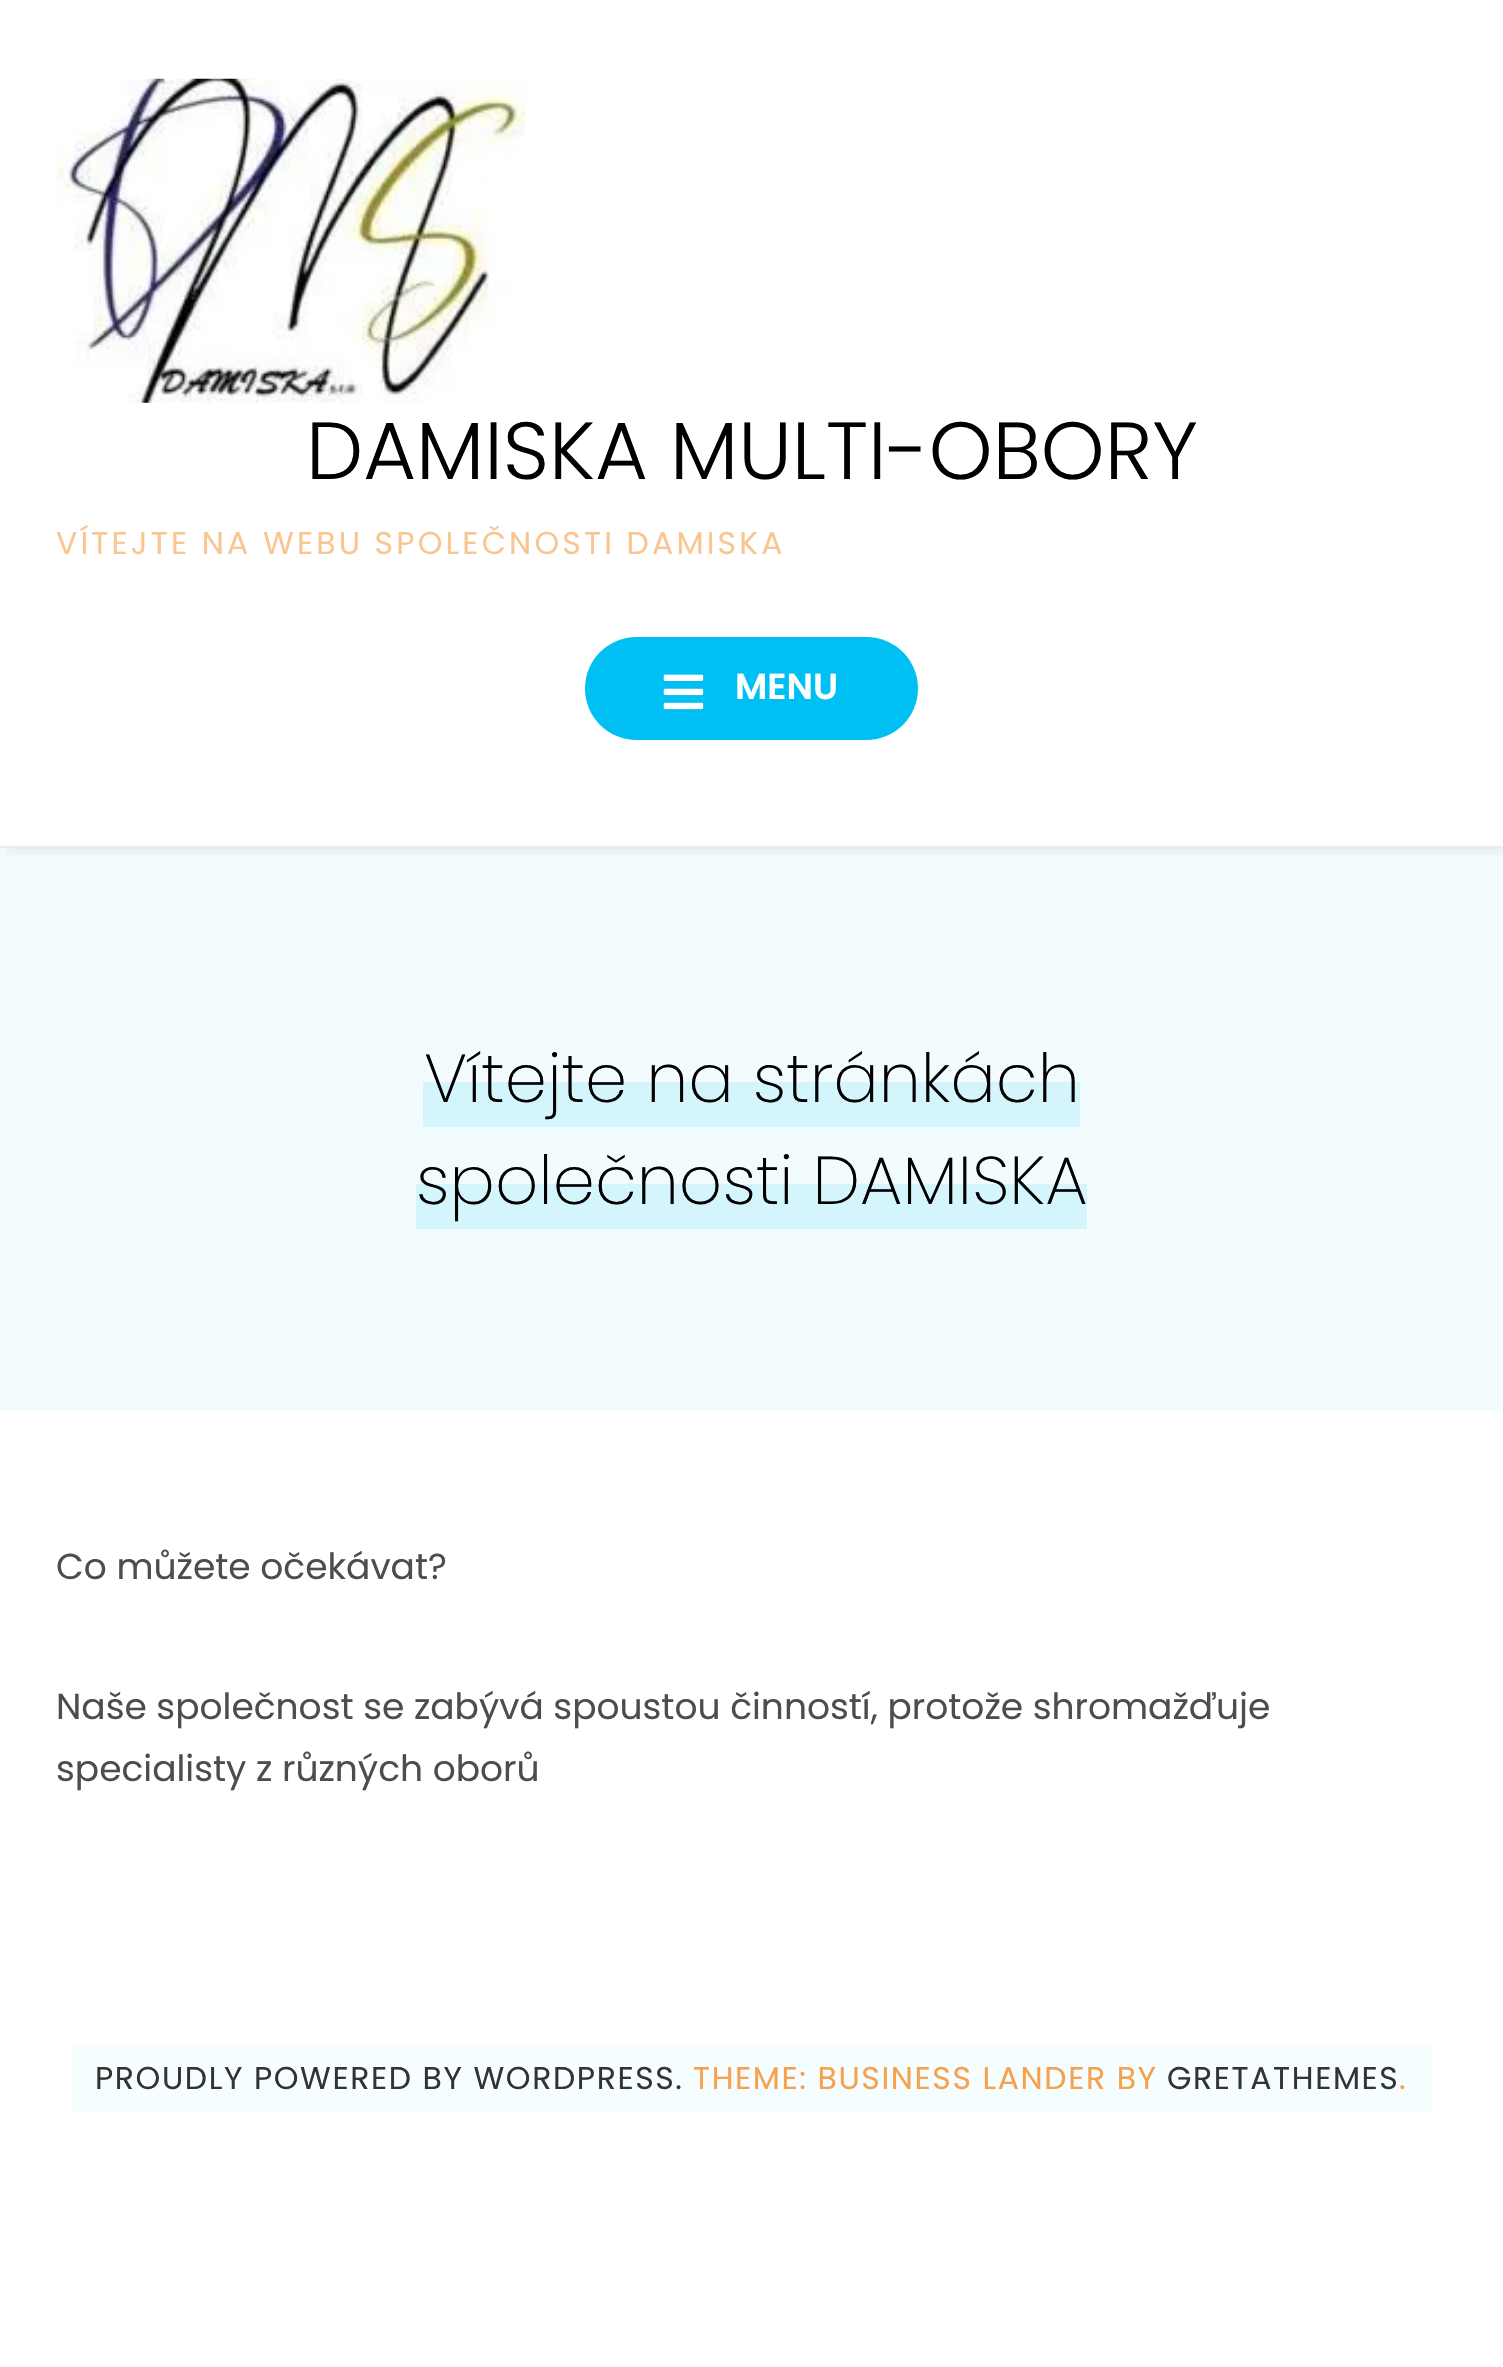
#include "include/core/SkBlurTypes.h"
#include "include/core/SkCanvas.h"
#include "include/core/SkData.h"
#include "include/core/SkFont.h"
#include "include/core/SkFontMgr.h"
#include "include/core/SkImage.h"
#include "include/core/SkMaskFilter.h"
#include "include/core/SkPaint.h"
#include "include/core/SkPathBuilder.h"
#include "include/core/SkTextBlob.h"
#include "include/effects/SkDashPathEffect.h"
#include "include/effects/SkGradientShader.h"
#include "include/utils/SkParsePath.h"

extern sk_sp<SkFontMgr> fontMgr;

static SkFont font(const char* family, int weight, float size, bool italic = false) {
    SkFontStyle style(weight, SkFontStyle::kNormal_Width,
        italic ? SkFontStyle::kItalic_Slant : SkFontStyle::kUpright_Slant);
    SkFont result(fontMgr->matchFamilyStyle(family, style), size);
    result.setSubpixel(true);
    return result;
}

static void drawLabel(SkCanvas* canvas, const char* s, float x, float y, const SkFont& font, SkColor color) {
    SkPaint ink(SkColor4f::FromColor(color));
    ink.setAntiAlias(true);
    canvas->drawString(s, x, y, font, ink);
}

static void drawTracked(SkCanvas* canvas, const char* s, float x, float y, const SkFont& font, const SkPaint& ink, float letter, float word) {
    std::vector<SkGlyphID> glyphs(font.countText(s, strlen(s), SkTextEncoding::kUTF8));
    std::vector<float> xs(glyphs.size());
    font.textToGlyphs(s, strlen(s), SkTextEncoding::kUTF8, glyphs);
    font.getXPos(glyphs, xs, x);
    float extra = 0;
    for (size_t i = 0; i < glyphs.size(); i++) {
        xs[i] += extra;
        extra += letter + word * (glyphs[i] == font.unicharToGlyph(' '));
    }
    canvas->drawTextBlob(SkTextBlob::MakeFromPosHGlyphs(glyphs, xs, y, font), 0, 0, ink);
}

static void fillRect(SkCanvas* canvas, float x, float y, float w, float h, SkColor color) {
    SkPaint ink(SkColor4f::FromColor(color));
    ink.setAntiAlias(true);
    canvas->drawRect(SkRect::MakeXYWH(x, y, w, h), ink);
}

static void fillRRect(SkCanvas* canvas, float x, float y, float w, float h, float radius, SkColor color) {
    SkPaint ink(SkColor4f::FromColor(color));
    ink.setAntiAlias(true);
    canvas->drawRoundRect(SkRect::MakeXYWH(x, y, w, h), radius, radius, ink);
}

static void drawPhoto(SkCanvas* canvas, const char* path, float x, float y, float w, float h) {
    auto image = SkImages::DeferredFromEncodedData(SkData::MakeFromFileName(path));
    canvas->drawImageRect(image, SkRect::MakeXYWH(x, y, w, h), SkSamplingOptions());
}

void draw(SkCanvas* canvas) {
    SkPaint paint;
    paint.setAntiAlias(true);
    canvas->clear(0xFFFFFFFF);
    fillRect(canvas, 0, 848, 1503, 563, 0xFFF2FCFE);
    canvas->save();
    canvas->clipRect(SkRect::MakeXYWH(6, 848, 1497, 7));
    paint.setColor(0x1A000000);
    paint.setMaskFilter(SkMaskFilter::MakeBlur(kNormal_SkBlurStyle, 8));
    canvas->drawRect(SkRect::MakeXYWH(7, 0, 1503, 848), paint);
    paint.setMaskFilter(nullptr);
    canvas->restore();
    fillRect(canvas, 0, 846, 1503, 2, 0xFFEBEBEB);
    drawPhoto(canvas, "assets/img1.png", 56, 78, 470, 325);
    SkFont font1 = font("Poppins", 300, 81);
    drawLabel(canvas, "DAMISKA MULTI-OBORY", 306, 479, font1, 0xFF000000);
    SkFont font2 = font("Poppins", 400, 31.5f);
    paint.setColor(0xFFF9C590);
    drawTracked(canvas, "VÍTEJTE NA WEBU SPOLEČNOSTI DAMISKA", 56, 554, font2, paint, 3.15f, 0);
    fillRRect(canvas, 585, 637, 333, 103, 51.5f, 0xFF00BFF3);
    drawPhoto(canvas, "assets/img2.png", 663, 674, 41, 36);
    SkFont font3 = font("Poppins", 600, 36);
    drawLabel(canvas, "MENU", 735, 699, font3, 0xFFFFFFFF);
    fillRect(canvas, 423, 1082, 657, 45, 0xFFD5F5FD);
    SkFont font4 = font("Poppins", 200, 67.5f);
    drawLabel(canvas, "Vítejte na stránkách", 424, 1102, font4, 0xFF000000);
    fillRect(canvas, 416, 1184, 671, 45, 0xFFD5F5FD);
    drawLabel(canvas, "společnosti DAMISKA", 416, 1204, font4, 0xFF000000);
    SkFont font5 = font("Poppins", 400, 36);
    drawLabel(canvas, "Co můžete očekávat?", 56, 1579, font5, 0xFF4D4D4D);
    drawLabel(canvas, "Naše společnost se zabývá spoustou činností, protože shromažďuje", 56, 1719, font5, 0xFF4D4D4D);
    drawLabel(canvas, "specialisty z různých oborů", 56, 1781, font5, 0xFF4D4D4D);
    fillRect(canvas, 72, 2045, 1359, 68, 0xFFF5FDFE);
    paint.setColor(0xFF333333);
    drawTracked(canvas, "PROUDLY POWERED BY WORDPRESS.", 95, 2089, font2, paint, 1.6f, 0);
    paint.setColor(0xFFF5A14D);
    drawTracked(canvas, "THEME: BUSINESS LANDER BY", 693, 2089, font2, paint, 1.6f, 0);
    paint.setColor(0xFF333333);
    drawTracked(canvas, "GRETATHEMES", 1167, 2089, font2, paint, 1.6f, 0);
    paint.setColor(0xFFF5A14D);
    drawTracked(canvas, ".", 1399, 2089, font2, paint, 1.6f, 0);
}
